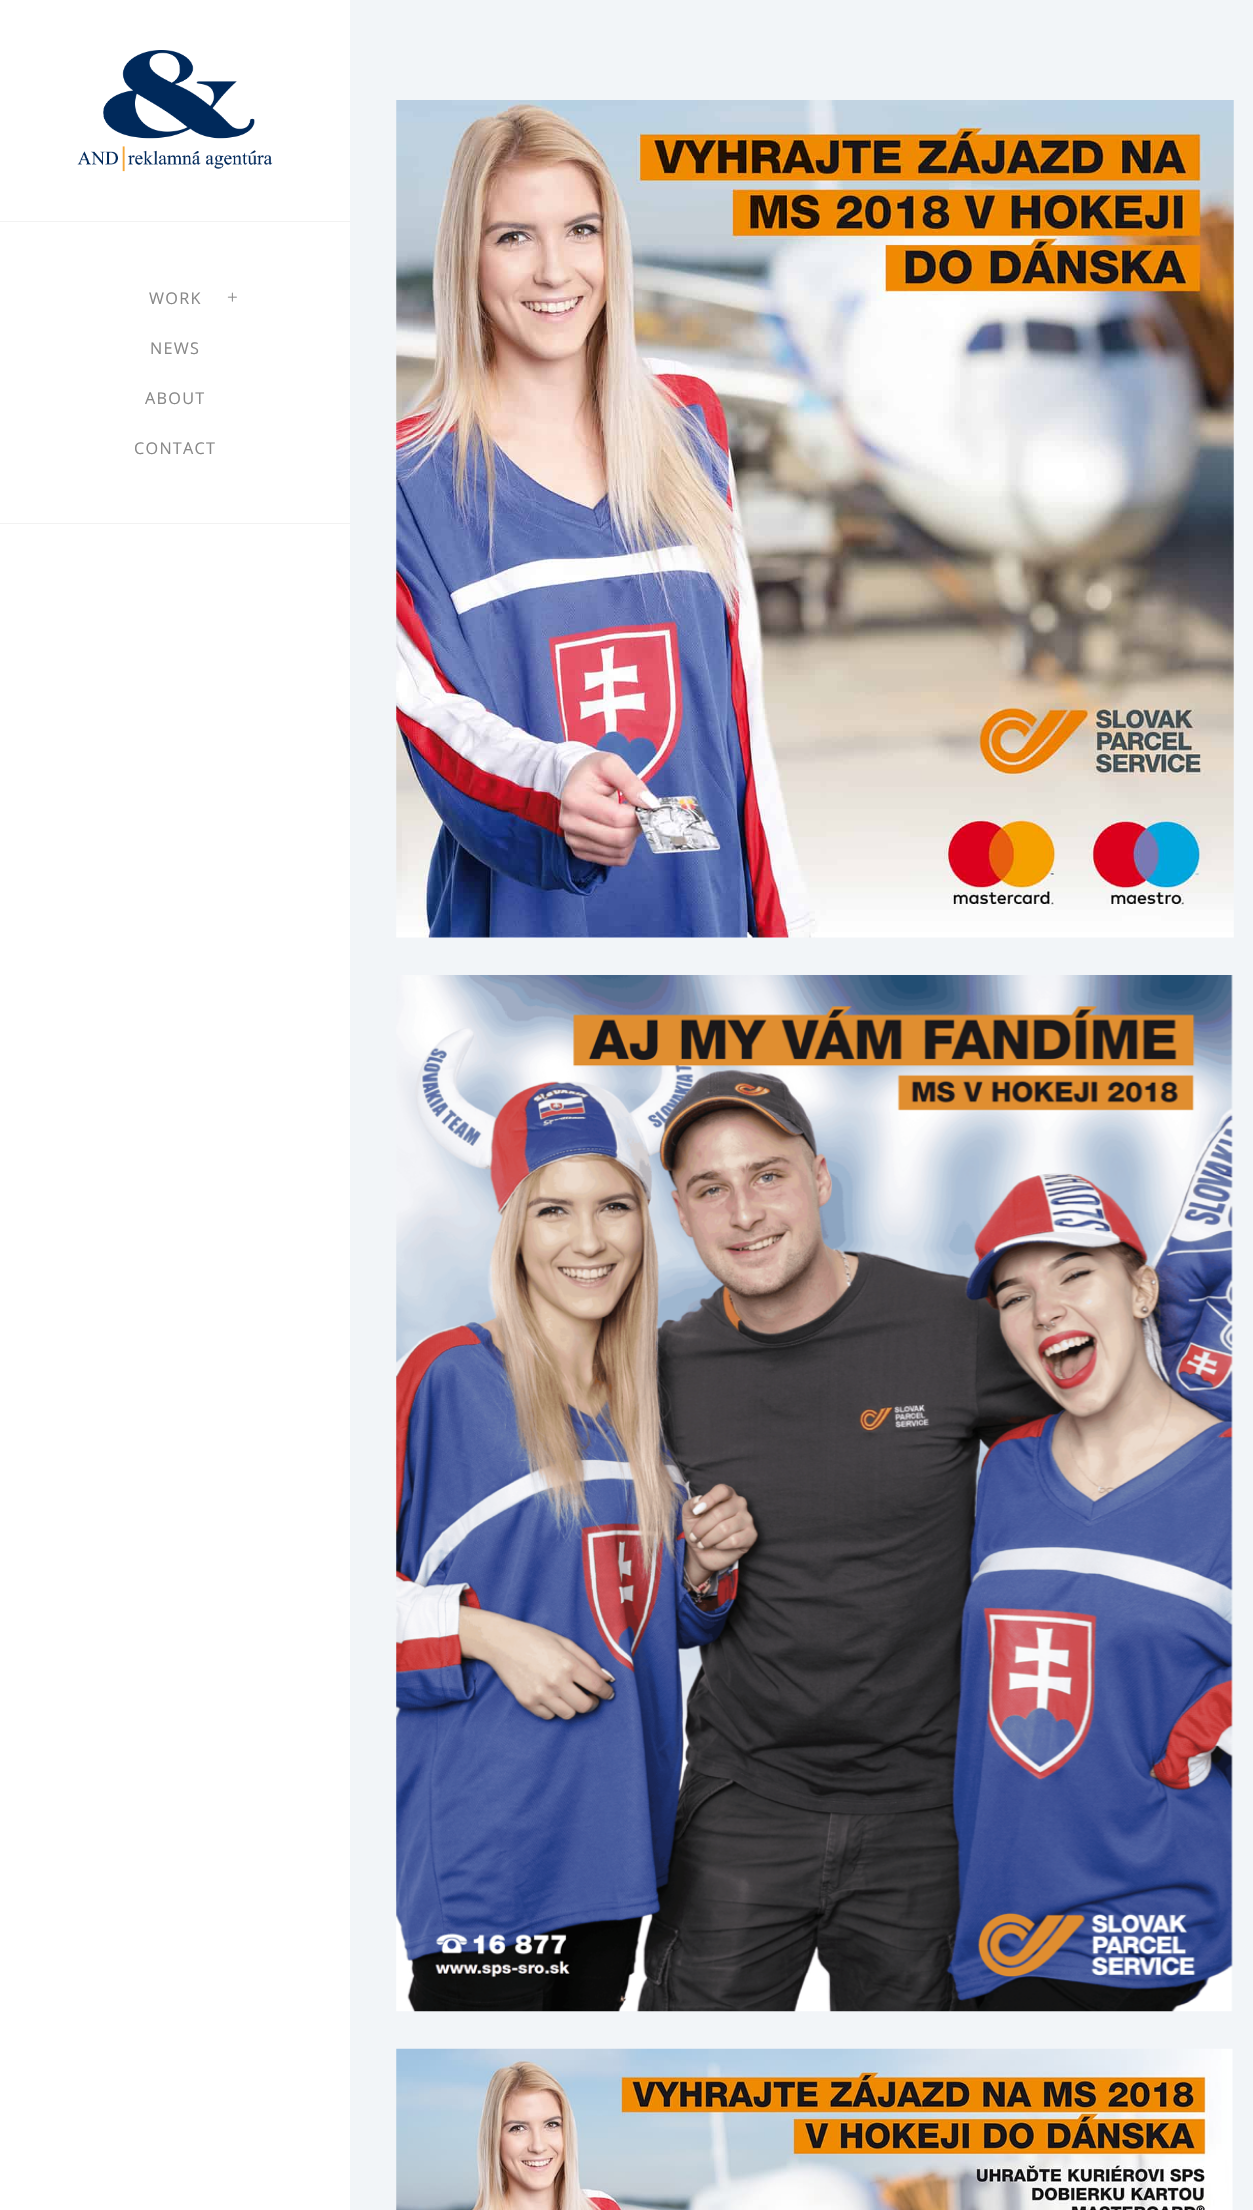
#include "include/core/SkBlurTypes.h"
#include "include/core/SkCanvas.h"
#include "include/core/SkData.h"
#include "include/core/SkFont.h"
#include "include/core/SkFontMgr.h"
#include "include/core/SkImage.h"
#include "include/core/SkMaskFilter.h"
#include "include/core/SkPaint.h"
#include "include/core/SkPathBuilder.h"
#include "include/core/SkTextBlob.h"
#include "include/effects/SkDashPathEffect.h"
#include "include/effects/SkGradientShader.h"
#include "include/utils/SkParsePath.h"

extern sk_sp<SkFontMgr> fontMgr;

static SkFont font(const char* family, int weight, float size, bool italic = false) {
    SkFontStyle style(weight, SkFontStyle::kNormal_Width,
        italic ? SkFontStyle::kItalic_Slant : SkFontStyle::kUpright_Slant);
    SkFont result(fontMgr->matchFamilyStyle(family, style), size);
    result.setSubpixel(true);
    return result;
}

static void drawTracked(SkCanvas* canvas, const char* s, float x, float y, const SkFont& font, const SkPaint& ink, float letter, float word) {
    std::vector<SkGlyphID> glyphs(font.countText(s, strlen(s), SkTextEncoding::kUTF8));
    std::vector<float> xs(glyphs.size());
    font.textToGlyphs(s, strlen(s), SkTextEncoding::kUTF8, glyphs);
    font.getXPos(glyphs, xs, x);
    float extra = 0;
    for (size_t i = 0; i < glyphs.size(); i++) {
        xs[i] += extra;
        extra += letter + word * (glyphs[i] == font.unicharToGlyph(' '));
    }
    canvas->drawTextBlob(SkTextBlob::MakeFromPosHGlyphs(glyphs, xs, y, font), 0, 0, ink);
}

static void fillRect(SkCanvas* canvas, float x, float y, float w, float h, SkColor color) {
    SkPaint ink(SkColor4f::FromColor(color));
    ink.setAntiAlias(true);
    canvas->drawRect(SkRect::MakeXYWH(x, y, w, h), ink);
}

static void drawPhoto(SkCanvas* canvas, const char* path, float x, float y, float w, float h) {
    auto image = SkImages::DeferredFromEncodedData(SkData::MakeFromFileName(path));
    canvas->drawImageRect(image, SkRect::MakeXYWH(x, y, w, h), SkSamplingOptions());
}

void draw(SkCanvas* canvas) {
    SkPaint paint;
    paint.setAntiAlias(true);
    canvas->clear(0xFFFFFFFF);
    drawPhoto(canvas, "assets/img1.png", 77, 50, 196, 122);
    fillRect(canvas, 0, 221, 350, 1, 0xFFF2F2F2);
    fillRect(canvas, 0, 523, 350, 1, 0xFFF2F2F2);
    SkFont font1 = font("Open Sans", 400, 16.25f);
    paint.setColor(0xFF888888);
    drawTracked(canvas, "WORK", 149, 304, font1, paint, 1.25f, 0);
    drawPhoto(canvas, "assets/img2.png", 227, 292, 10, 10);
    drawTracked(canvas, "NEWS", 150, 354, font1, paint, 1.25f, 0);
    drawTracked(canvas, "ABOUT", 145, 404, font1, paint, 1.25f, 0);
    drawTracked(canvas, "CONTACT", 134, 454, font1, paint, 1.25f, 0);
    fillRect(canvas, 350, 0, 903, 2210, 0xFFF2F5F8);
    drawPhoto(canvas, "assets/img3.png", 396, 100, 838, 838);
    drawPhoto(canvas, "assets/img4.png", 396, 975, 837, 1037);
    drawPhoto(canvas, "assets/img5.png", 396, 2048, 837, 162);
}
